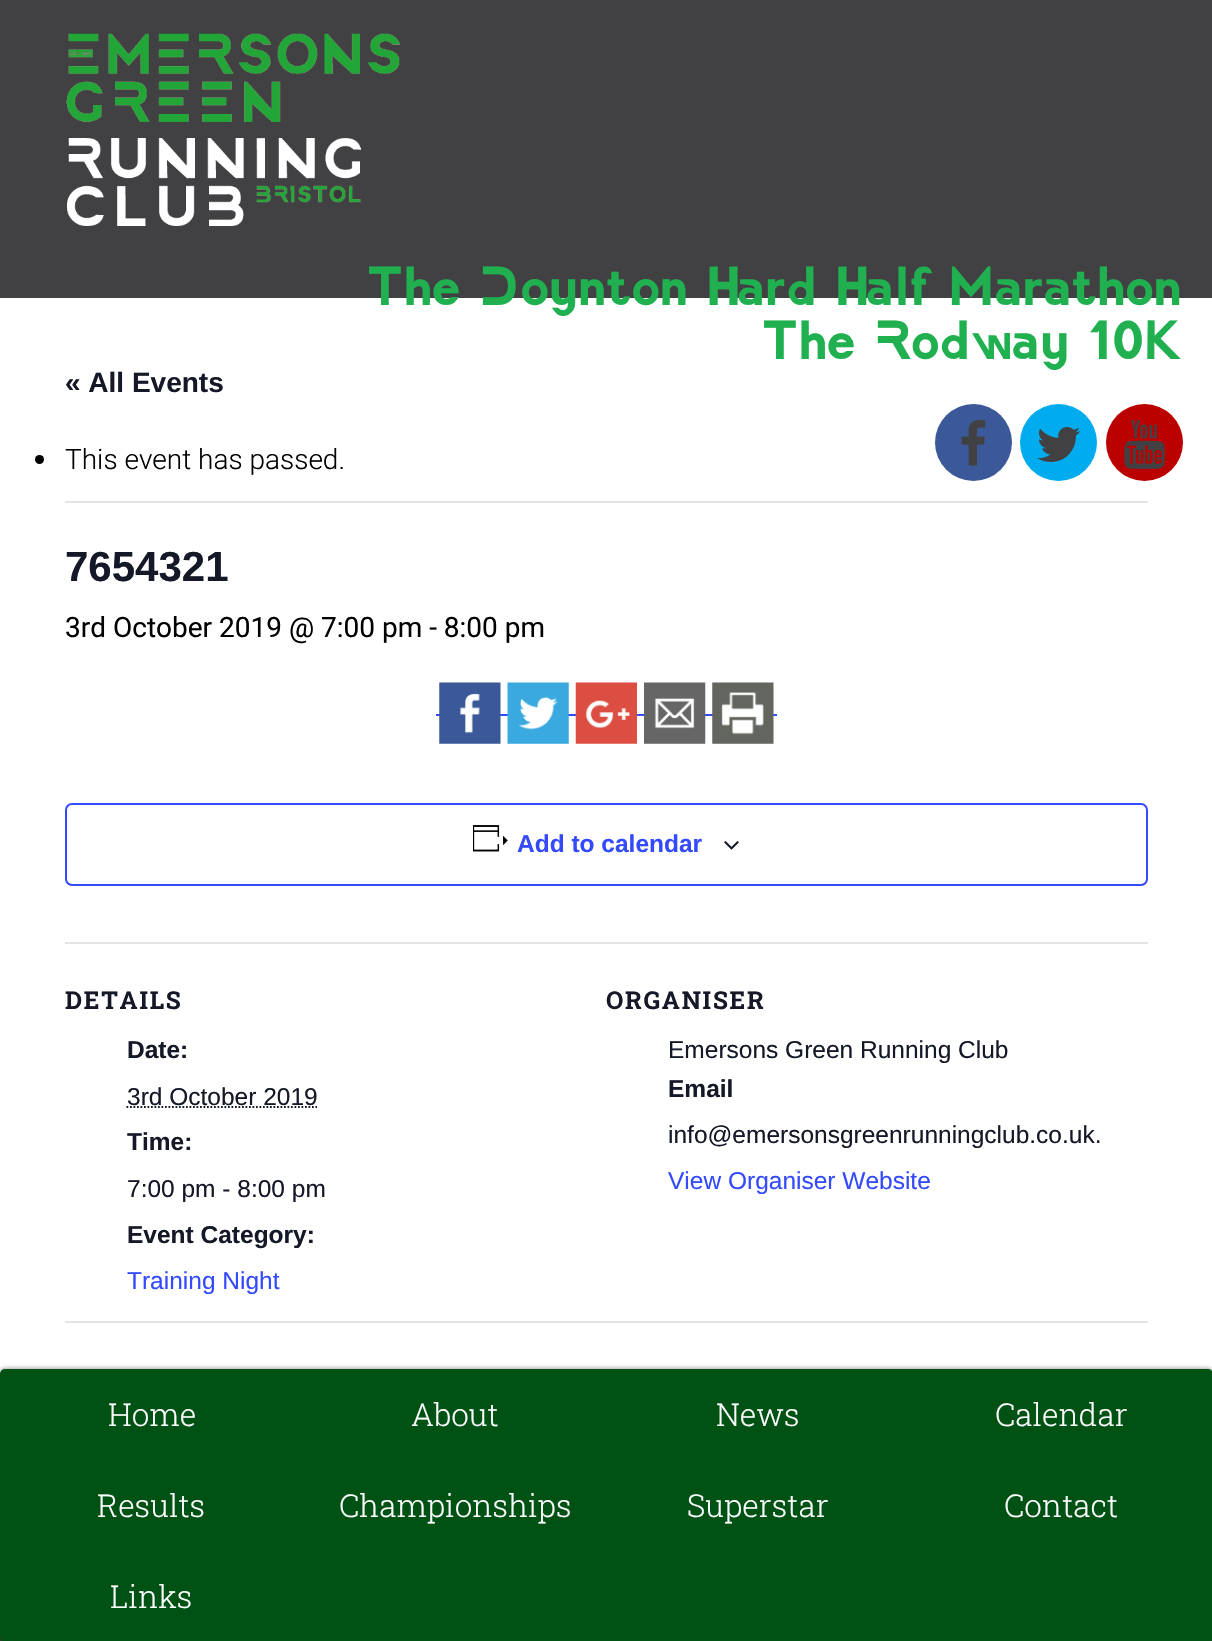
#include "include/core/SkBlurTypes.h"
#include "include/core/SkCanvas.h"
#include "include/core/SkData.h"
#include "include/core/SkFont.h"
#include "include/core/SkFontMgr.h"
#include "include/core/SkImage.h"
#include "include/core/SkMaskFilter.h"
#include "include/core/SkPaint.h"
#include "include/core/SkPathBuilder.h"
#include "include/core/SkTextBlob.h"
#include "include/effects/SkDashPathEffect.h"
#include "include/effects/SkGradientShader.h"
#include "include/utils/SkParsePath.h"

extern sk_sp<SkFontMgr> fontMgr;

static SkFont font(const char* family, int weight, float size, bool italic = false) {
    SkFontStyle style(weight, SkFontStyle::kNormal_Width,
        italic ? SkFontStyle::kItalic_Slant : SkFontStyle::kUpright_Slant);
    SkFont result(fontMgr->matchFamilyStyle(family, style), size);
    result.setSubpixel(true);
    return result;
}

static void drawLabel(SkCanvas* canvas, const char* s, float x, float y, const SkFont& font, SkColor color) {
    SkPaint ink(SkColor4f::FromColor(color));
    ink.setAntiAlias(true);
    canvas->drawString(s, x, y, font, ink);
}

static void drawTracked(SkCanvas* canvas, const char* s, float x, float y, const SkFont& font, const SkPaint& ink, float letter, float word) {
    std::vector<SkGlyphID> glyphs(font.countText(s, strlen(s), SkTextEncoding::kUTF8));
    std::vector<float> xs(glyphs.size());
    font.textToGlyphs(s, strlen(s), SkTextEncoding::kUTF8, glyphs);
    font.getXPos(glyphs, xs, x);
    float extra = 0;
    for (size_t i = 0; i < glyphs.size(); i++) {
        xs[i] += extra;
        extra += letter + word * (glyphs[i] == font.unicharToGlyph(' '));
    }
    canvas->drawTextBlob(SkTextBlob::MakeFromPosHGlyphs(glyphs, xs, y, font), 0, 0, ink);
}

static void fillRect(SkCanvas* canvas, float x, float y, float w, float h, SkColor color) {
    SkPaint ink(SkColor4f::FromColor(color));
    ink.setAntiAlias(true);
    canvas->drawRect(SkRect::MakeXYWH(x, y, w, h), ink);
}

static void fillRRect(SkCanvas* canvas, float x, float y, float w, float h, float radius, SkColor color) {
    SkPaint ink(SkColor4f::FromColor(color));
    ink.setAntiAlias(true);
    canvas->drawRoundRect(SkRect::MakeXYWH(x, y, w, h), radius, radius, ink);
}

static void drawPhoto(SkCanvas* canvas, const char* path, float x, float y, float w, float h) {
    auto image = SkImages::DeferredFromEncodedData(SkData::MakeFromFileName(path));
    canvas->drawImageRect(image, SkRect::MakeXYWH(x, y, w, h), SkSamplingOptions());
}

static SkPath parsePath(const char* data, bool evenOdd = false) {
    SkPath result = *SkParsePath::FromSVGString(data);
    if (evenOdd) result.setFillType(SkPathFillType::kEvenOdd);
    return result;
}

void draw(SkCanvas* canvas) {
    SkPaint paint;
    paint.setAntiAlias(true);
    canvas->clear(0xFFFFFFFF);
    fillRect(canvas, 0, 0, 1212, 298, 0xFF414042);
    drawPhoto(canvas, "assets/img1.png", 66, 33, 334, 193);
    SkFont font1 = font("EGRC", 400, 52.5f);
    drawLabel(canvas, "The Doynton Hard Half Marathon", 367, 305, font1, 0xFF20B050);
    drawLabel(canvas, "The Rodway 10K", 762, 359, font1, 0xFF20B050);
    paint.setColor(0xFF3B5998);
    canvas->drawCircle(973.5f, 442.5f, 38.5f, paint);
    drawPhoto(canvas, "assets/img2.png", 961, 420, 25, 46);
    paint.setColor(0xFF00ACED);
    canvas->drawCircle(1058.5f, 442.5f, 38.5f, paint);
    drawPhoto(canvas, "assets/img3.png", 1037, 427, 44, 35);
    paint.setColor(0xFFBB0000);
    canvas->drawCircle(1144.5f, 442.5f, 38.5f, paint);
    drawPhoto(canvas, "assets/img4.png", 1124, 420, 41, 49);
    fillRect(canvas, 0, 1637, 1212, 4, 0xFF414042);
    paint.setColor(0x80000000);
    paint.setMaskFilter(SkMaskFilter::MakeBlur(kNormal_SkBlurStyle, 2.5f));
    canvas->drawRoundRect(SkRect::MakeXYWH(0, 1369, 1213, 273), 5, 5, paint);
    paint.setMaskFilter(nullptr);
    fillRRect(canvas, 0, 1369, 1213, 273, 5, 0xFF005214);
    SkFont font2 = font("Roboto Slab", 300, 31.5f);
    drawLabel(canvas, "Home", 108, 1426, font2, 0xFFFFFFFF);
    drawLabel(canvas, "About", 411, 1426, font2, 0xFFFFFFFF);
    drawLabel(canvas, "News", 716, 1426, font2, 0xFFFFFFFF);
    drawLabel(canvas, "Calendar", 995, 1426, font2, 0xFFFFFFFF);
    drawLabel(canvas, "Results", 97, 1517, font2, 0xFFFFFFFF);
    drawLabel(canvas, "Championships", 339, 1517, font2, 0xFFFFFFFF);
    drawLabel(canvas, "Superstar", 687, 1517, font2, 0xFFFFFFFF);
    drawLabel(canvas, "Contact", 1004, 1517, font2, 0xFFFFFFFF);
    drawLabel(canvas, "Links", 110, 1608, font2, 0xFFFFFFFF);
    SkFont font3 = font("Liberation Sans", 700, 28);
    drawLabel(canvas, "« All Events", 65, 392, font3, 0xFF141827);
    fillRect(canvas, 65, 501, 1083, 2, 0xFFE4E4E4);
    paint.setColor(0xFF000000);
    canvas->drawCircle(39.5f, 459.5f, 4.5f, paint);
    SkFont font4 = font("Roboto", 300, 28);
    drawLabel(canvas, "This event has passed.", 65, 469, font4, 0xFF000000);
    SkFont font5 = font("Liberation Sans", 700, 42);
    drawLabel(canvas, "7654321", 65, 581, font5, 0xFF141827);
    SkFont font6 = font("Roboto", 400, 28);
    drawLabel(canvas, "3rd October 2019 @ 7:00 pm - 8:00 pm", 65, 637, font6, 0xFF000000);
    fillRect(canvas, 436, 714, 341, 2, 0xFF334AFF);
    drawPhoto(canvas, "assets/img5.png", 439, 682, 62, 62);
    drawPhoto(canvas, "assets/img6.png", 507, 682, 62, 62);
    drawPhoto(canvas, "assets/img7.png", 575, 682, 62, 62);
    drawPhoto(canvas, "assets/img8.png", 644, 682, 62, 62);
    drawPhoto(canvas, "assets/img9.png", 712, 682, 62, 62);
    paint.setStroke(true);
    paint.setStrokeWidth(2);
    paint.setColor(0xFF334AFF);
    canvas->drawRoundRect(SkRect::MakeXYWH(66, 804, 1081, 81), 6, 6, paint);
    drawPhoto(canvas, "assets/img10.png", 473, 825, 35, 27);
    SkFont font7 = font("Liberation Sans", 700, 24.5f);
    drawLabel(canvas, "Add to calendar", 517, 852, font7, 0xFF334AFF);
    drawPhoto(canvas, "assets/img11.png", 724, 841, 15, 9);
    fillRect(canvas, 65, 942, 1083, 2, 0xFFE4E4E4);
    SkFont font8 = font("Roboto Slab", 700, 24.5f);
    paint.setStroke(false);
    paint.setColor(0xFF141827);
    drawTracked(canvas, "DETAILS", 65, 1009, font8, paint, 1.75f, 0);
    drawLabel(canvas, "Date:", 127, 1058, font7, 0xFF141827);
    SkFont font9 = font("Liberation Sans", 400, 24.5f);
    drawLabel(canvas, "3rd October 2019", 127, 1105, font9, 0xFF141827);
    paint.setStroke(true);
    paint.setStrokeWidth(1.8f);
    paint.setPathEffect(SkDashPathEffect::Make({{1.75f, 1.75f}}, 0));
    canvas->drawPath(parsePath("M126.5 1107H317"), paint);
    paint.setPathEffect(nullptr);
    drawLabel(canvas, "Time:", 127, 1150, font7, 0xFF141827);
    drawLabel(canvas, "7:00 pm - 8:00 pm", 127, 1197, font9, 0xFF141827);
    drawLabel(canvas, "Event Category:", 127, 1243, font7, 0xFF141827);
    drawLabel(canvas, "Training Night", 127, 1289, font9, 0xFF334AFF);
    paint.setStroke(false);
    drawTracked(canvas, "ORGANISER", 606, 1009, font8, paint, 1.75f, 0);
    drawLabel(canvas, "Emersons Green Running Club", 668, 1058, font9, 0xFF141827);
    drawLabel(canvas, "Email", 668, 1097, font7, 0xFF141827);
    drawLabel(canvas, "info@emersonsgreenrunningclub.co.uk.", 668, 1143, font9, 0xFF141827);
    drawLabel(canvas, "View Organiser Website", 668, 1189, font9, 0xFF334AFF);
    fillRect(canvas, 65, 1321, 1083, 2, 0xFFE4E4E4);
}
